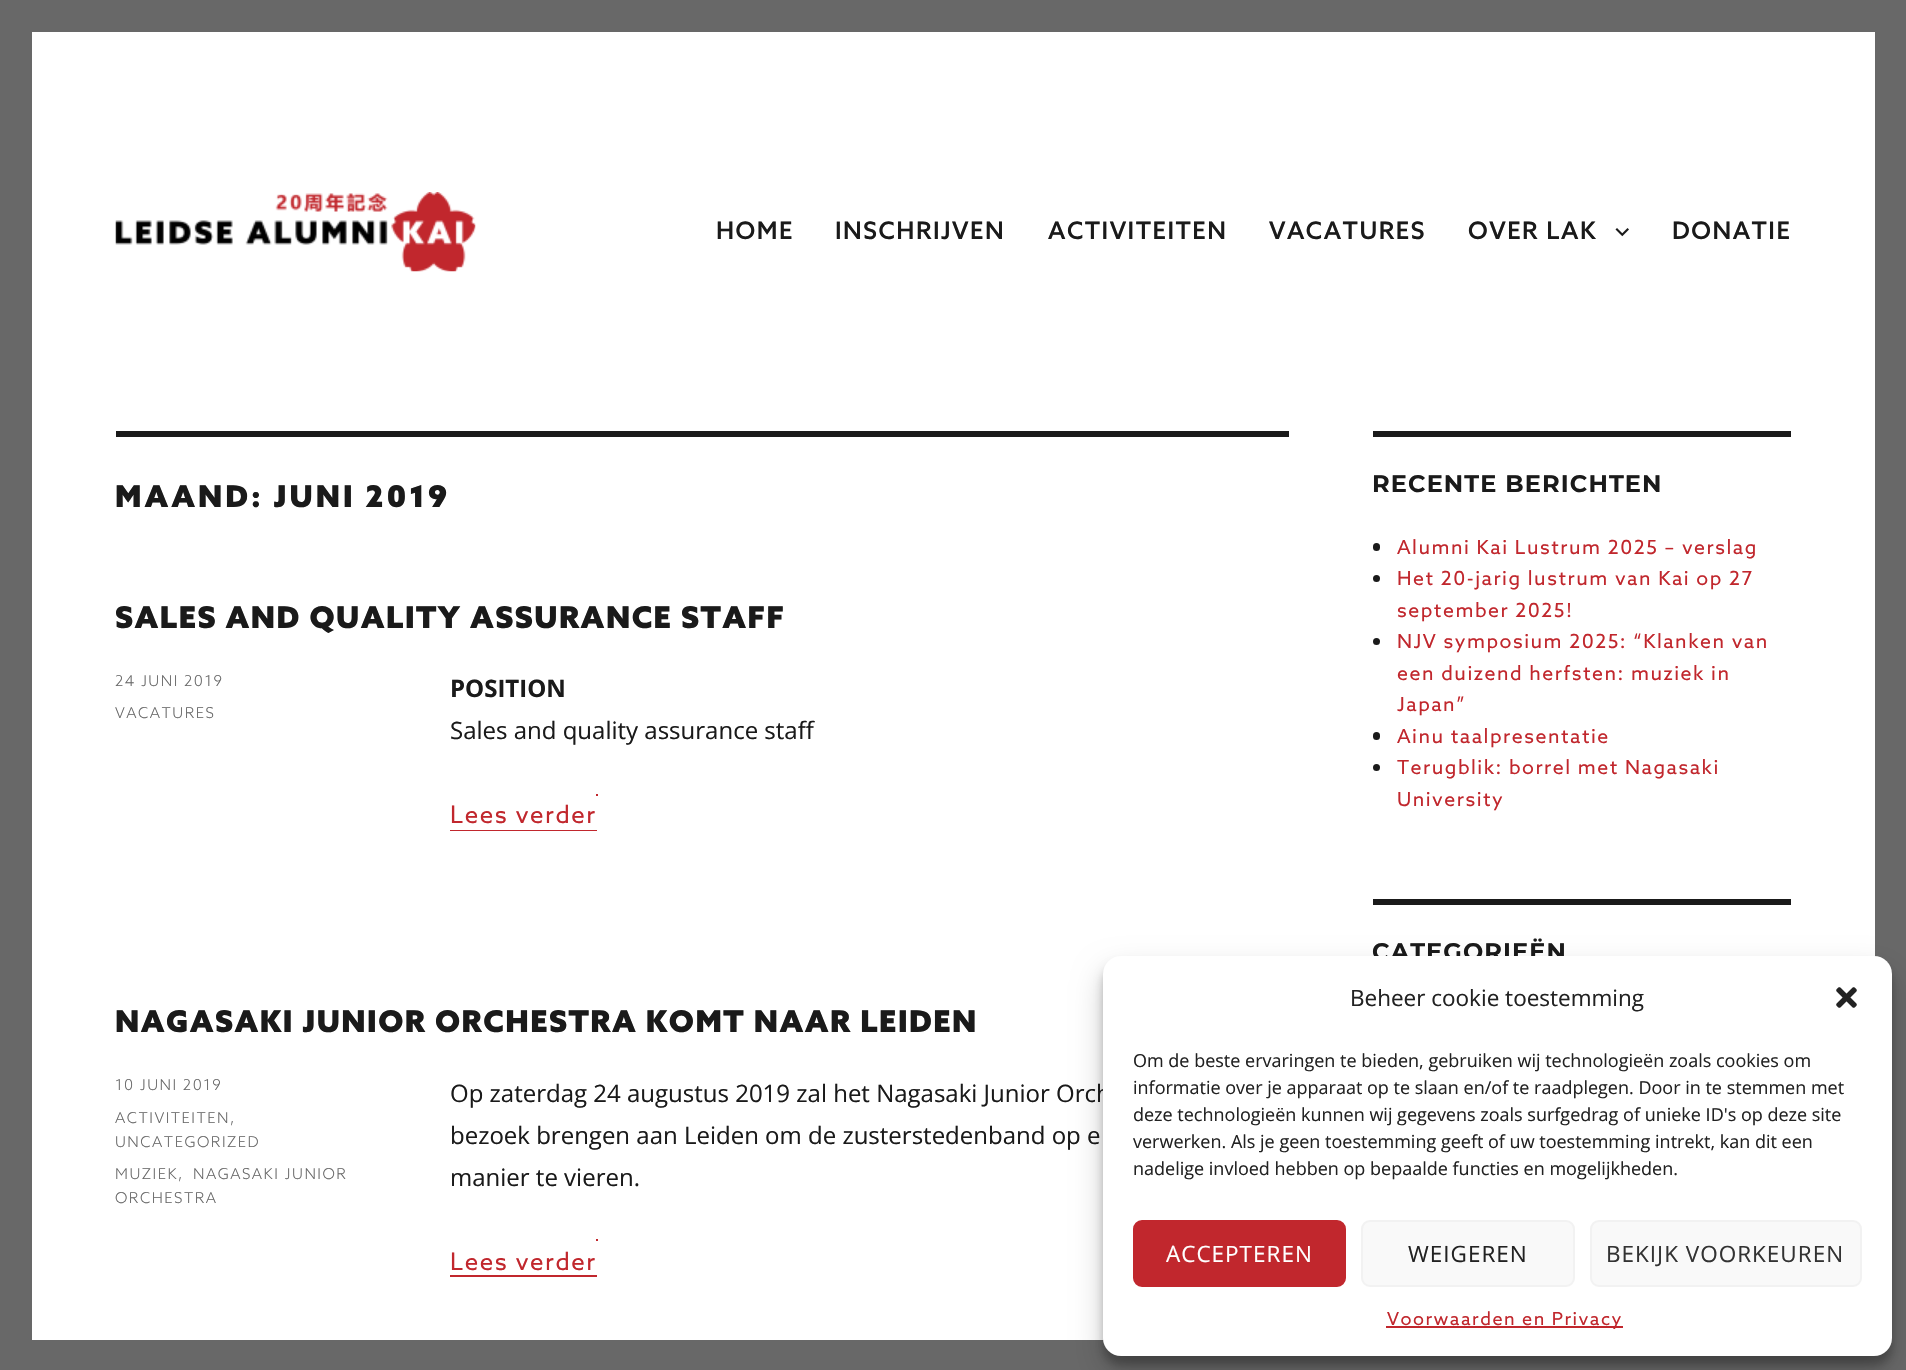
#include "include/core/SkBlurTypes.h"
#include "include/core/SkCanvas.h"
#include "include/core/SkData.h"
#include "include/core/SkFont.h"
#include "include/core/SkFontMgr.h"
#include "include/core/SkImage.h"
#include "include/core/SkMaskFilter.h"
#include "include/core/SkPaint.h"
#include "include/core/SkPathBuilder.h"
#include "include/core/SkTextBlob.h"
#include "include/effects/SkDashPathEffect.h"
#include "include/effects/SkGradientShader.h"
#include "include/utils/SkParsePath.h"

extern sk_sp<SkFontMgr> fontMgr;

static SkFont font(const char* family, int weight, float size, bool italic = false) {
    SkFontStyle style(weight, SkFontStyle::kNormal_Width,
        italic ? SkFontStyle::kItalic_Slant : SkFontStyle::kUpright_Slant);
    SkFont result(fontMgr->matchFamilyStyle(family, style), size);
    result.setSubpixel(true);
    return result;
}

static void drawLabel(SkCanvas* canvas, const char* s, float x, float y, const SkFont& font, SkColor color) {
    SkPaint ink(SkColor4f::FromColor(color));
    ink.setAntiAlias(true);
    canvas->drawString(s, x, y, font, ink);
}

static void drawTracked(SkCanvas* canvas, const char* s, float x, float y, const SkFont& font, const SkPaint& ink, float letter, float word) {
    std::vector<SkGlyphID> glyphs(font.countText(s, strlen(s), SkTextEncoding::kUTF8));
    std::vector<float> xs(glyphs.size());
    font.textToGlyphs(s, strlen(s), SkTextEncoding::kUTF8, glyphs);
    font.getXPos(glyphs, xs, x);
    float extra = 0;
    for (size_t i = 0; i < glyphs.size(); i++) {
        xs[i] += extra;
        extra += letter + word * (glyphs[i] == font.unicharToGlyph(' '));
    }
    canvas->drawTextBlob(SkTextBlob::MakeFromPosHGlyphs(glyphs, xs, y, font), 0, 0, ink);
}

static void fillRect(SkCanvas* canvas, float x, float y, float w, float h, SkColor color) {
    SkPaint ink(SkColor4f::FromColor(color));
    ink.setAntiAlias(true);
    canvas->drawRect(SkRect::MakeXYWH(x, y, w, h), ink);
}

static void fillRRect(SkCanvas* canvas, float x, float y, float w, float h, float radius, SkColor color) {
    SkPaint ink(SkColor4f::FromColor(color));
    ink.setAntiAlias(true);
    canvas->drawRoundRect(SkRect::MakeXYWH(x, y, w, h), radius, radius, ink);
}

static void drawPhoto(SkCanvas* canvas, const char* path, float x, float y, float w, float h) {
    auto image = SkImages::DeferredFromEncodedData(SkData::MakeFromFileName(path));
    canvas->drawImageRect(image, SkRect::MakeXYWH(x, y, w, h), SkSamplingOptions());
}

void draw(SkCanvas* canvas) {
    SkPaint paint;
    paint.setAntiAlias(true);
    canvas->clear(0xFF686868);
    fillRect(canvas, 32, 32, 1843, 1308, 0xFFFFFFFF);
    drawPhoto(canvas, "assets/img1.png", 115, 192, 361, 80);
    SkFont font1 = font("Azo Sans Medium", 500, 24);
    paint.setColor(0xFF1A1A1A);
    drawTracked(canvas, "HOME", 716, 239, font1, paint, 1.5f, 0);
    drawTracked(canvas, "INSCHRIJVEN", 835, 239, font1, paint, 1.5f, 0);
    drawTracked(canvas, "ACTIVITEITEN", 1048, 239, font1, paint, 1.5f, 0);
    drawTracked(canvas, "VACATURES", 1269, 239, font1, paint, 1.5f, 0);
    drawTracked(canvas, "OVER LAK", 1468, 239, font1, paint, 1.5f, 0);
    drawPhoto(canvas, "assets/img2.png", 1615, 228, 14, 9);
    drawTracked(canvas, "DONATIE", 1672, 239, font1, paint, 1.5f, 0);
    fillRect(canvas, 116, 431, 1173, 6, 0xFF1A1A1A);
    SkFont font2 = font("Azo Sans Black", 900, 30);
    drawTracked(canvas, "MAAND: JUNI 2019", 115, 507, font2, paint, 3, 0);
    drawTracked(canvas, "SALES AND QUALITY ASSURANCE STAFF", 115, 628, font2, paint, 1.5f, 0);
    SkFont font3 = font("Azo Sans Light", 300, 15);
    paint.setColor(0xFF686868);
    drawTracked(canvas, "24 JUNI 2019", 115, 686, font3, paint, 1.5f, 0);
    drawTracked(canvas, "VACATURES", 115, 718, font3, paint, 1.5f, 0);
    SkFont font4 = font("Open Sans", 700, 24);
    drawLabel(canvas, "POSITION", 450, 697, font4, 0xFF1A1A1A);
    SkFont font5 = font("Open Sans", 400, 24);
    drawLabel(canvas, "Sales and quality assurance staff", 450, 739, font5, 0xFF1A1A1A);
    SkFont font6 = font("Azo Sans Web", 400, 24);
    paint.setColor(0xFFC1272D);
    drawTracked(canvas, "Lees verder", 450, 823, font6, paint, 1.5f, 0);
    fillRect(canvas, 450, 830, 147, 1, 0xFFC1272D);
    fillRect(canvas, 596, 794, 2, 2, 0xFFC1272D);
    paint.setColor(0xFF1A1A1A);
    drawTracked(canvas, "NAGASAKI JUNIOR ORCHESTRA KOMT NAAR LEIDEN", 115, 1032, font2, paint, 1.5f, 0);
    paint.setColor(0xFF686868);
    drawTracked(canvas, "10 JUNI 2019", 115, 1090, font3, paint, 1.5f, 0);
    drawTracked(canvas, "ACTIVITEITEN", 115, 1123, font3, paint, 1.5f, 0);
    drawTracked(canvas, ",", 230, 1123, font3, paint, 3, 0);
    drawTracked(canvas, "UNCATEGORIZED", 115, 1147, font3, paint, 1.5f, 0);
    drawTracked(canvas, "MUZIEK", 115, 1179, font3, paint, 1.5f, 0);
    drawTracked(canvas, ",", 178, 1179, font3, paint, 3, 0);
    drawTracked(canvas, "NAGASAKI JUNIOR", 193, 1179, font3, paint, 1.5f, 0);
    drawTracked(canvas, "ORCHESTRA", 115, 1203, font3, paint, 1.5f, 0);
    drawLabel(canvas, "Op zaterdag 24 augustus 2019 zal het Nagasaki Junior Orch", 450, 1102, font5, 0xFF1A1A1A);
    drawLabel(canvas, "bezoek brengen aan Leiden om de zusterstedenband op e", 450, 1144, font5, 0xFF1A1A1A);
    drawLabel(canvas, "manier te vieren.", 450, 1186, font5, 0xFF1A1A1A);
    paint.setColor(0xFFC1272D);
    drawTracked(canvas, "Lees verder", 450, 1270, font6, paint, 1.5f, 0);
    fillRect(canvas, 450, 1275, 147, 2, 0xFFC1272D);
    fillRect(canvas, 596, 1239, 2, 2, 0xFFC1272D);
    fillRect(canvas, 1373, 431, 418, 6, 0xFF1A1A1A);
    SkFont font7 = font("Montserrat", 100, 24);
    paint.setColor(0xFF1A1A1A);
    drawTracked(canvas, "RECENTE BERICHTEN", 1372, 492, font7, paint, 1.1f, 0);
    fillRRect(canvas, 1373, 543, 7, 8, 3.5f, 0xFF1A1A1A);
    SkFont font8 = font("Azo Sans Web", 400, 19.5f);
    paint.setColor(0xFFC1272D);
    drawTracked(canvas, "Alumni Kai Lustrum 2025 – verslag", 1397, 554, font8, paint, 1.5f, 0);
    paint.setColor(0xFF1A1A1A);
    canvas->drawCircle(1376.5f, 578.5f, 3.5f, paint);
    paint.setColor(0xFFC1272D);
    drawTracked(canvas, "Het 20-jarig lustrum van Kai op 27", 1397, 585, font8, paint, 1.5f, 0);
    drawTracked(canvas, "september 2025!", 1397, 617, font8, paint, 1.5f, 0);
    paint.setColor(0xFF1A1A1A);
    canvas->drawCircle(1376.5f, 641.5f, 3.5f, paint);
    paint.setColor(0xFFC1272D);
    drawTracked(canvas, "NJV symposium 2025: “Klanken van", 1397, 648, font8, paint, 1.5f, 0);
    drawTracked(canvas, "een duizend herfsten: muziek in", 1397, 680, font8, paint, 1.5f, 0);
    drawTracked(canvas, "Japan”", 1397, 711, font8, paint, 1.5f, 0);
    fillRRect(canvas, 1373, 732, 7, 8, 3.5f, 0xFF1A1A1A);
    drawTracked(canvas, "Ainu taalpresentatie", 1397, 743, font8, paint, 1.5f, 0);
    paint.setColor(0xFF1A1A1A);
    canvas->drawCircle(1376.5f, 767.5f, 3.5f, paint);
    paint.setColor(0xFFC1272D);
    drawTracked(canvas, "Terugblik: borrel met Nagasaki", 1397, 774, font8, paint, 1.5f, 0);
    drawTracked(canvas, "University", 1397, 806, font8, paint, 1.5f, 0);
    fillRect(canvas, 1373, 899, 418, 6, 0xFF1A1A1A);
    paint.setColor(0xFF1A1A1A);
    drawTracked(canvas, "CATEGORIEËN", 1372, 960, font7, paint, 1.1f, 0);
    paint.setColor(0x3B000000);
    paint.setMaskFilter(SkMaskFilter::MakeBlur(kNormal_SkBlurStyle, 4.5f));
    canvas->drawRoundRect(SkRect::MakeXYWH(1103, 965, 789, 400), 18, 18, paint);
    paint.setMaskFilter(nullptr);
    paint.setColor(0x30000000);
    paint.setMaskFilter(SkMaskFilter::MakeBlur(kNormal_SkBlurStyle, 15));
    canvas->drawRoundRect(SkRect::MakeXYWH(1103, 971, 789, 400), 18, 18, paint);
    paint.setMaskFilter(nullptr);
    fillRRect(canvas, 1103, 956, 789, 400, 18, 0xFFFFFFFF);
    SkFont font9 = font("Open Sans", 400, 22.5f);
    drawLabel(canvas, "Beheer cookie toestemming", 1350, 1006, font9, 0xFF222222);
    drawPhoto(canvas, "assets/img3.png", 1836, 987, 21, 21);
    SkFont font10 = font("Open Sans", 400, 18);
    drawLabel(canvas, "Om de beste ervaringen te bieden, gebruiken wij technologieën zoals cookies om", 1133, 1067, font10, 0xFF222222);
    drawLabel(canvas, "informatie over je apparaat op te slaan en/of te raadplegen. Door in te stemmen met", 1133, 1094, font10, 0xFF222222);
    drawLabel(canvas, "deze technologieën kunnen wij gegevens zoals surfgedrag of unieke ID's op deze site", 1133, 1121, font10, 0xFF222222);
    drawLabel(canvas, "verwerken. Als je geen toestemming geeft of uw toestemming intrekt, kan dit een", 1133, 1148, font10, 0xFF222222);
    drawLabel(canvas, "nadelige invloed hebben op bepaalde functies en mogelijkheden.", 1133, 1175, font10, 0xFF222222);
    paint.setColor(0xFFC1272D);
    canvas->drawRoundRect(SkRect::MakeXYWH(1134, 1221, 211, 65), 8, 8, paint);
    paint.setStroke(true);
    paint.setStrokeWidth(2);
    canvas->drawRoundRect(SkRect::MakeXYWH(1134, 1221, 211, 65), 8, 8, paint);
    paint.setStroke(false);
    paint.setColor(0xFFFFFFFF);
    drawTracked(canvas, "ACCEPTEREN", 1166, 1262, font9, paint, 1, 0);
    paint.setColor(0xFFF9F9F9);
    canvas->drawRoundRect(SkRect::MakeXYWH(1362, 1221, 212, 65), 8, 8, paint);
    paint.setStroke(true);
    paint.setColor(0xFFF2F2F2);
    canvas->drawRoundRect(SkRect::MakeXYWH(1362, 1221, 212, 65), 8, 8, paint);
    paint.setStroke(false);
    paint.setColor(0xFF222222);
    drawTracked(canvas, "WEIGEREN", 1408, 1262, font9, paint, 1, 0);
    paint.setColor(0xFFF9F9F9);
    canvas->drawRoundRect(SkRect::MakeXYWH(1591, 1221, 270, 65), 8, 8, paint);
    paint.setStroke(true);
    paint.setColor(0xFFF2F2F2);
    canvas->drawRoundRect(SkRect::MakeXYWH(1591, 1221, 270, 65), 8, 8, paint);
    paint.setStroke(false);
    paint.setColor(0xFF333333);
    drawTracked(canvas, "BEKIJK VOORKEUREN", 1606, 1262, font9, paint, 1, 0);
    fillRect(canvas, 1386, 1326, 237, 2, 0xFFC1272D);
    SkFont font11 = font("Azo Sans Web", 400, 18);
    paint.setColor(0xFFC1272D);
    drawTracked(canvas, "Voorwaarden en Privacy", 1387, 1325, font11, paint, 1.5f, 0);
}
